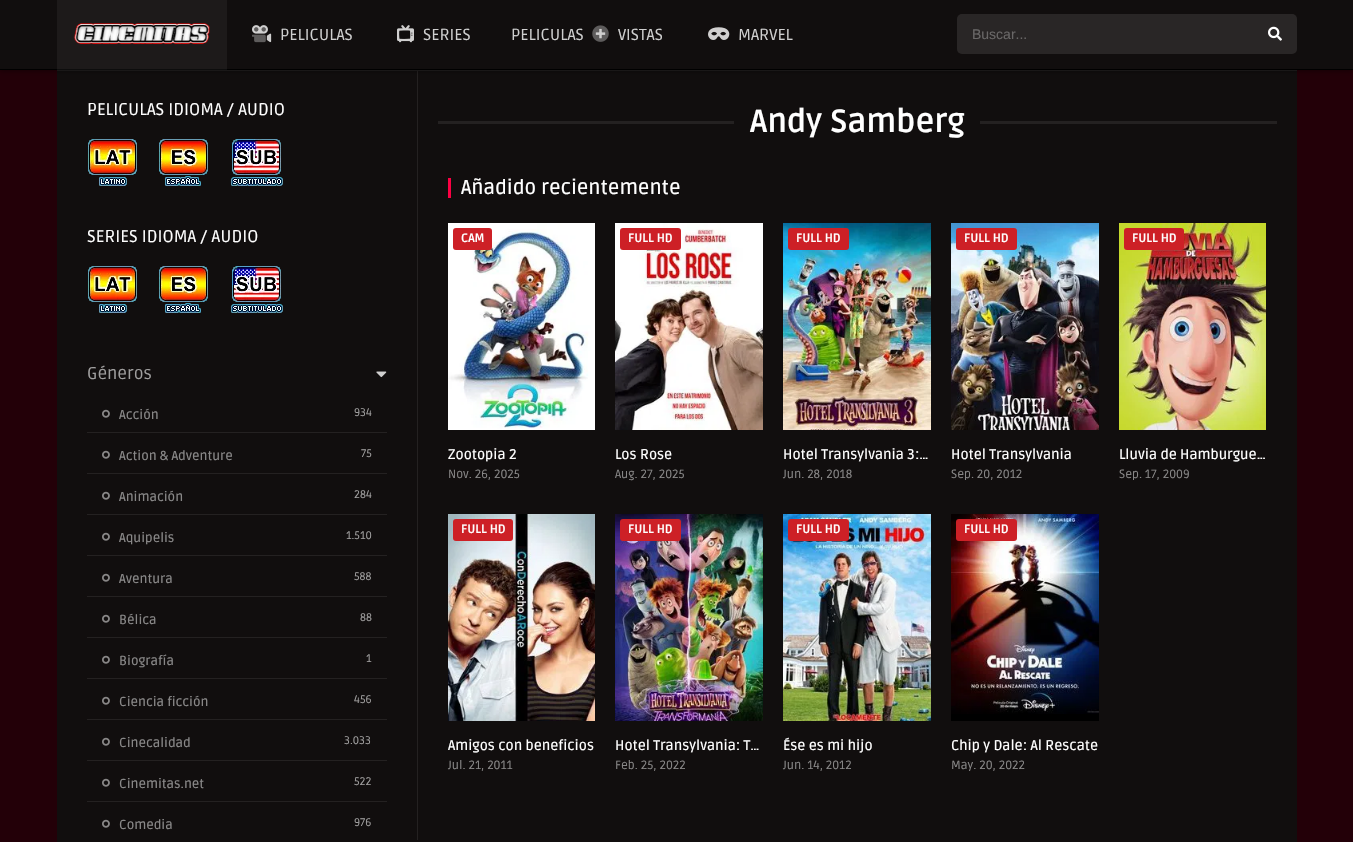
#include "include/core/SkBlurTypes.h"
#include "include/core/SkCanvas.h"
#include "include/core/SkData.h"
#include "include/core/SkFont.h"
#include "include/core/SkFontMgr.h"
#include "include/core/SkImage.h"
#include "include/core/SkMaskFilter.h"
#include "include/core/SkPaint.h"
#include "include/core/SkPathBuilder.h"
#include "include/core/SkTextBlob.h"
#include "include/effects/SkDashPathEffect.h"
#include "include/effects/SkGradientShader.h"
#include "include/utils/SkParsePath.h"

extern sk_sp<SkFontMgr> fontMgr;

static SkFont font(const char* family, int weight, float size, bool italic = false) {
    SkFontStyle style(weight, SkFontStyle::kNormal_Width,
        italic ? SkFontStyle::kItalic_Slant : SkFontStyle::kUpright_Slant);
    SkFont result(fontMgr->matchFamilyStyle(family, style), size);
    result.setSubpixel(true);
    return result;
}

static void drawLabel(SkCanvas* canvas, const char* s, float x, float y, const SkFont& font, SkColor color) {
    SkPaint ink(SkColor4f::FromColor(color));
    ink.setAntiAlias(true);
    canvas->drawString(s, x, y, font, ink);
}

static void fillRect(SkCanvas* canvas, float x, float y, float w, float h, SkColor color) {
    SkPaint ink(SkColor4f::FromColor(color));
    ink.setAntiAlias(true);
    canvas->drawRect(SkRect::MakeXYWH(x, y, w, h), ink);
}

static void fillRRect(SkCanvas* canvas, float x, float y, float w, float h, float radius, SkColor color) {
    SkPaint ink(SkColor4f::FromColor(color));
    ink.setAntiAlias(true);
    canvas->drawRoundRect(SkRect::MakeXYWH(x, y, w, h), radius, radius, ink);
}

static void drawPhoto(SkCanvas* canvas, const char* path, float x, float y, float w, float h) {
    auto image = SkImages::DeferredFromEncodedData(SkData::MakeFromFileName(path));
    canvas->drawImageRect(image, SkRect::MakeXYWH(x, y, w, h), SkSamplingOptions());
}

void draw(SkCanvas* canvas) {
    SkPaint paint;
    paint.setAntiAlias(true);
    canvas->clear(0xFF230008);
    fillRect(canvas, 57, 71, 1240, 771, 0xFF110E0E);
    fillRect(canvas, 57, 70, 1240, 1, 0xFF221F1F);
    fillRect(canvas, 417, 71, 1, 769, 0xFF242121);
    paint.setColor(0x66000000);
    paint.setMaskFilter(SkMaskFilter::MakeBlur(kNormal_SkBlurStyle, 2.5f));
    canvas->drawRect(SkRect::MakeXYWH(0, 1, 1353, 70), paint);
    paint.setMaskFilter(nullptr);
    fillRect(canvas, 0, 0, 1353, 69, 0xFF110E0E);
    fillRect(canvas, 57, 0, 170, 69, 0xFF1D1A1A);
    fillRect(canvas, 0, 69, 1353, 1, 0xFF000000);
    fillRect(canvas, 57, 69, 170, 1, 0xFF0D0D0D);
    drawPhoto(canvas, "assets/img1.png", 73, 23, 137, 22);
    drawPhoto(canvas, "assets/img2.png", 252, 25, 20, 18);
    drawPhoto(canvas, "assets/img3.png", 252, 27, 14, 16);
    SkFont font1 = font("Ruda", 400, 16);
    drawLabel(canvas, "PELICULAS", 280, 40, font1, 0xFFCFCFCF);
    drawPhoto(canvas, "assets/img4.png", 397, 25, 17, 18);
    drawLabel(canvas, "SERIES", 423, 40, font1, 0xFFCFCFCF);
    drawLabel(canvas, "PELICULAS", 511, 40, font1, 0xFFCFCFCF);
    drawPhoto(canvas, "assets/img6.png", 595, 28, 11, 11);
    drawPhoto(canvas, "assets/img5.png", 592, 25, 17, 17);
    drawLabel(canvas, "VISTAS", 618, 40, font1, 0xFFCFCFCF);
    drawPhoto(canvas, "assets/img7.png", 708, 27, 22, 13);
    drawLabel(canvas, "MARVEL", 738, 40, font1, 0xFFCFCFCF);
    fillRRect(canvas, 957, 14, 340, 40, 5, 0xFF292626);
    SkFont font2 = font("Liberation Sans", 400, 14);
    drawLabel(canvas, "Buscar...", 972, 39, font2, 0xFF696767);
    drawPhoto(canvas, "assets/img8.png", 1268, 26, 14, 15);
    SkFont font3 = font("Ruda", 400, 17);
    drawLabel(canvas, "PELICULAS IDIOMA / AUDIO", 87, 115, font3, 0xFFFFFFFF);
    drawPhoto(canvas, "assets/img9.png", 88, 139, 49, 47);
    drawPhoto(canvas, "assets/img10.png", 159, 139, 49, 47);
    drawPhoto(canvas, "assets/img11.png", 231, 139, 52, 47);
    drawLabel(canvas, "SERIES IDIOMA / AUDIO", 87, 242, font3, 0xFFFFFFFF);
    drawPhoto(canvas, "assets/img9.png", 88, 266, 49, 47);
    drawPhoto(canvas, "assets/img10.png", 159, 266, 49, 47);
    drawPhoto(canvas, "assets/img11.png", 231, 266, 52, 47);
    drawLabel(canvas, "Géneros", 87, 379, font3, 0xFFA09F9F);
    drawPhoto(canvas, "assets/img12.png", 376, 371, 11, 7);
    fillRect(canvas, 87, 432, 300, 1, 0xFF242121);
    drawPhoto(canvas, "assets/img13.png", 102, 409, 8, 9);
    SkFont font4 = font("Ruda", 500, 13);
    drawLabel(canvas, "Acción", 119, 419, font4, 0xFF888787);
    SkFont font5 = font("Ruda", 400, 11);
    drawLabel(canvas, "934", 354, 416, font5, 0xFFA09F9F);
    fillRect(canvas, 87, 473, 300, 1, 0xFF242121);
    drawPhoto(canvas, "assets/img13.png", 102, 450, 8, 9);
    drawLabel(canvas, "Action & Adventure", 119, 460, font4, 0xFF888787);
    drawLabel(canvas, "75", 361, 457, font5, 0xFFA09F9F);
    fillRect(canvas, 87, 514, 300, 1, 0xFF242121);
    drawPhoto(canvas, "assets/img13.png", 102, 491, 8, 9);
    drawLabel(canvas, "Animación", 119, 501, font4, 0xFF888787);
    drawLabel(canvas, "284", 354, 498, font5, 0xFFA09F9F);
    fillRect(canvas, 87, 555, 300, 1, 0xFF242121);
    drawPhoto(canvas, "assets/img13.png", 102, 532, 8, 9);
    drawLabel(canvas, "Aquipelis", 119, 542, font4, 0xFF888787);
    drawLabel(canvas, "1.510", 346, 539, font5, 0xFFA09F9F);
    fillRect(canvas, 87, 596, 300, 1, 0xFF242121);
    drawPhoto(canvas, "assets/img13.png", 102, 573, 8, 9);
    drawLabel(canvas, "Aventura", 119, 583, font4, 0xFF888787);
    drawLabel(canvas, "588", 354, 580, font5, 0xFFA09F9F);
    fillRect(canvas, 87, 637, 300, 1, 0xFF242121);
    drawPhoto(canvas, "assets/img13.png", 102, 614, 8, 9);
    drawLabel(canvas, "Bélica", 119, 624, font4, 0xFF888787);
    drawLabel(canvas, "88", 360, 621, font5, 0xFFA09F9F);
    fillRect(canvas, 87, 678, 300, 1, 0xFF242121);
    drawPhoto(canvas, "assets/img13.png", 102, 655, 8, 9);
    drawLabel(canvas, "Biografía", 119, 665, font4, 0xFF888787);
    drawLabel(canvas, "1", 366, 662, font5, 0xFFA09F9F);
    fillRect(canvas, 87, 719, 300, 1, 0xFF242121);
    drawPhoto(canvas, "assets/img13.png", 102, 696, 8, 9);
    drawLabel(canvas, "Ciencia ficción", 119, 706, font4, 0xFF888787);
    drawLabel(canvas, "456", 354, 703, font5, 0xFFA09F9F);
    fillRect(canvas, 87, 760, 300, 1, 0xFF242121);
    drawPhoto(canvas, "assets/img13.png", 102, 737, 8, 9);
    drawLabel(canvas, "Cinecalidad", 119, 747, font4, 0xFF888787);
    drawLabel(canvas, "3.033", 344, 744, font5, 0xFFA09F9F);
    fillRect(canvas, 87, 801, 300, 1, 0xFF242121);
    drawPhoto(canvas, "assets/img13.png", 102, 778, 8, 9);
    drawLabel(canvas, "Cinemitas.net", 119, 788, font4, 0xFF888787);
    drawLabel(canvas, "522", 354, 785, font5, 0xFFA09F9F);
    drawPhoto(canvas, "assets/img13.png", 102, 819, 8, 9);
    drawLabel(canvas, "Comedia", 119, 829, font4, 0xFF888787);
    drawLabel(canvas, "976", 354, 826, font5, 0xFFA09F9F);
    fillRect(canvas, 438, 121, 296, 3, 0xFF242121);
    SkFont font6 = font("Ruda", 700, 32);
    drawLabel(canvas, "Andy Samberg", 750, 132, font6, 0xFFFFFFFF);
    fillRect(canvas, 980, 121, 297, 3, 0xFF242121);
    fillRect(canvas, 448, 178, 3, 20, 0xFFFC0043);
    SkFont font7 = font("Ruda", 500, 20);
    drawLabel(canvas, "Añadido recientemente", 461, 194, font7, 0xFFFFFFFF);
    drawPhoto(canvas, "assets/img14.png", 448, 223, 147, 207);
    fillRRect(canvas, 453, 228, 39, 22, 3, 0xFFCD2026);
    SkFont font8 = font("Ruda", 700, 12);
    drawLabel(canvas, "CAM", 461, 242, font8, 0xFFFFFFFF);
    SkFont font9 = font("Ruda", 500, 14);
    drawLabel(canvas, "Zootopia 2", 448, 459, font9, 0xFFFFFFFF);
    SkFont font10 = font("Ruda", 400, 12);
    drawLabel(canvas, "Nov. 26, 2025", 448, 478, font10, 0xFF888787);
    drawPhoto(canvas, "assets/img15.png", 615, 223, 148, 207);
    fillRRect(canvas, 620, 228, 61, 22, 3, 0xFFCD2026);
    drawLabel(canvas, "FULL HD", 628, 242, font8, 0xFFFFFFFF);
    drawLabel(canvas, "Los Rose", 615, 459, font9, 0xFFFFFFFF);
    drawLabel(canvas, "Aug. 27, 2025", 615, 478, font10, 0xFF888787);
    drawPhoto(canvas, "assets/img16.png", 783, 223, 148, 207);
    fillRRect(canvas, 788, 228, 61, 22, 3, 0xFFCD2026);
    drawLabel(canvas, "FULL HD", 796, 242, font8, 0xFFFFFFFF);
    drawLabel(canvas, "Hotel Transylvania 3:…", 783, 459, font9, 0xFFFFFFFF);
    drawLabel(canvas, "Jun. 28, 2018", 783, 478, font10, 0xFF888787);
    drawPhoto(canvas, "assets/img17.png", 951, 223, 148, 207);
    fillRRect(canvas, 956, 228, 61, 22, 3, 0xFFCD2026);
    drawLabel(canvas, "FULL HD", 964, 242, font8, 0xFFFFFFFF);
    drawLabel(canvas, "Hotel Transylvania", 951, 459, font9, 0xFFFFFFFF);
    drawLabel(canvas, "Sep. 20, 2012", 951, 478, font10, 0xFF888787);
    drawPhoto(canvas, "assets/img18.png", 1119, 223, 147, 207);
    fillRRect(canvas, 1124, 228, 60, 22, 3, 0xFFCD2026);
    drawLabel(canvas, "FULL HD", 1132, 242, font8, 0xFFFFFFFF);
    drawLabel(canvas, "Lluvia de Hamburgue…", 1119, 459, font9, 0xFFFFFFFF);
    drawLabel(canvas, "Sep. 17, 2009", 1119, 478, font10, 0xFF888787);
    drawPhoto(canvas, "assets/img19.png", 448, 514, 147, 207);
    fillRRect(canvas, 453, 519, 60, 22, 3, 0xFFCD2026);
    drawLabel(canvas, "FULL HD", 461, 533, font8, 0xFFFFFFFF);
    drawLabel(canvas, "Amigos con beneficios", 448, 750, font9, 0xFFFFFFFF);
    drawLabel(canvas, "Jul. 21, 2011", 448, 769, font10, 0xFF888787);
    drawPhoto(canvas, "assets/img20.png", 615, 514, 148, 207);
    fillRRect(canvas, 620, 519, 61, 22, 3, 0xFFCD2026);
    drawLabel(canvas, "FULL HD", 628, 533, font8, 0xFFFFFFFF);
    drawLabel(canvas, "Hotel Transylvania: T…", 615, 750, font9, 0xFFFFFFFF);
    drawLabel(canvas, "Feb. 25, 2022", 615, 769, font10, 0xFF888787);
    drawPhoto(canvas, "assets/img21.png", 783, 514, 148, 207);
    fillRRect(canvas, 788, 519, 61, 22, 3, 0xFFCD2026);
    drawLabel(canvas, "FULL HD", 796, 533, font8, 0xFFFFFFFF);
    drawLabel(canvas, "Ése es mi hijo", 783, 750, font9, 0xFFFFFFFF);
    drawLabel(canvas, "Jun. 14, 2012", 783, 769, font10, 0xFF888787);
    fillRect(canvas, 951, 714, 148, 7, 0xFF000000);
    drawPhoto(canvas, "assets/img22.png", 951, 514, 148, 200);
    fillRRect(canvas, 956, 519, 61, 22, 3, 0xFFCD2026);
    drawLabel(canvas, "FULL HD", 964, 533, font8, 0xFFFFFFFF);
    drawLabel(canvas, "Chip y Dale: Al Rescate", 951, 750, font9, 0xFFFFFFFF);
    drawLabel(canvas, "May. 20, 2022", 951, 769, font10, 0xFF888787);
}
